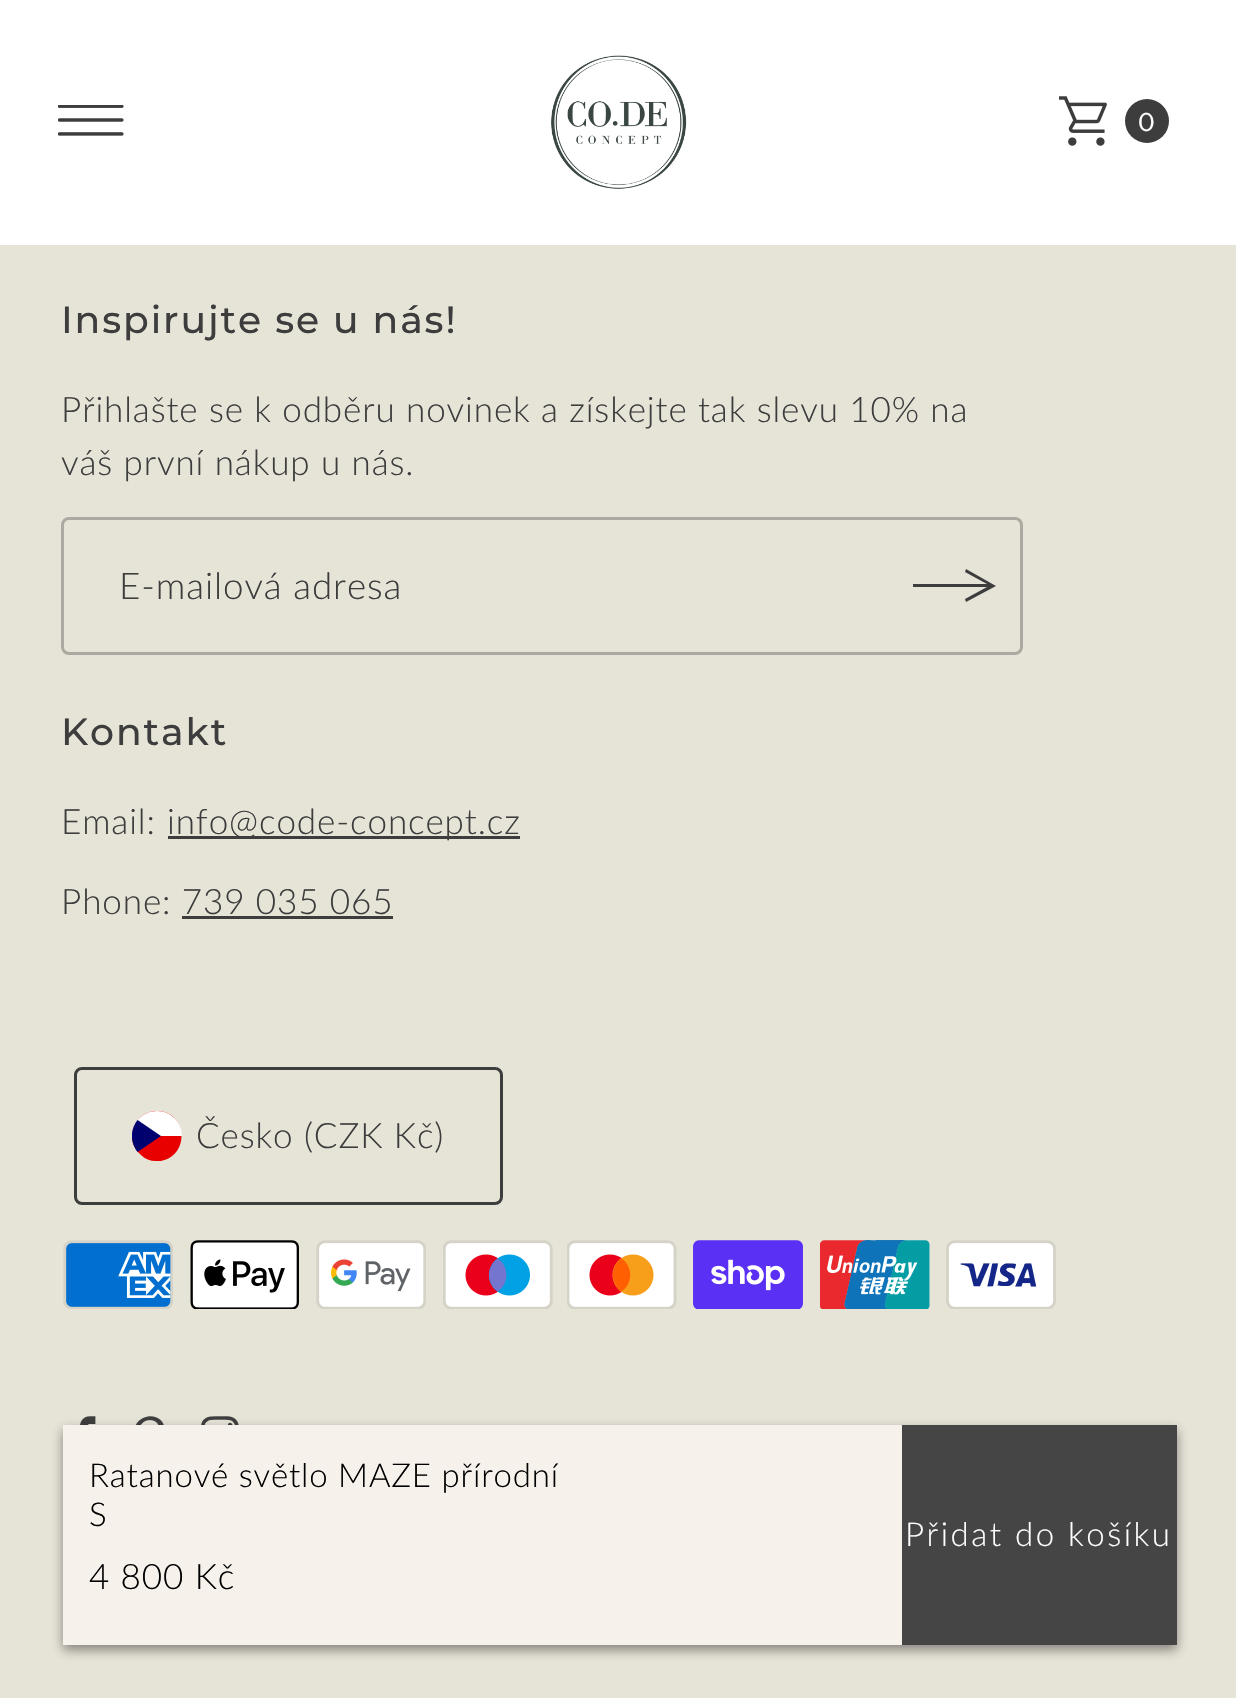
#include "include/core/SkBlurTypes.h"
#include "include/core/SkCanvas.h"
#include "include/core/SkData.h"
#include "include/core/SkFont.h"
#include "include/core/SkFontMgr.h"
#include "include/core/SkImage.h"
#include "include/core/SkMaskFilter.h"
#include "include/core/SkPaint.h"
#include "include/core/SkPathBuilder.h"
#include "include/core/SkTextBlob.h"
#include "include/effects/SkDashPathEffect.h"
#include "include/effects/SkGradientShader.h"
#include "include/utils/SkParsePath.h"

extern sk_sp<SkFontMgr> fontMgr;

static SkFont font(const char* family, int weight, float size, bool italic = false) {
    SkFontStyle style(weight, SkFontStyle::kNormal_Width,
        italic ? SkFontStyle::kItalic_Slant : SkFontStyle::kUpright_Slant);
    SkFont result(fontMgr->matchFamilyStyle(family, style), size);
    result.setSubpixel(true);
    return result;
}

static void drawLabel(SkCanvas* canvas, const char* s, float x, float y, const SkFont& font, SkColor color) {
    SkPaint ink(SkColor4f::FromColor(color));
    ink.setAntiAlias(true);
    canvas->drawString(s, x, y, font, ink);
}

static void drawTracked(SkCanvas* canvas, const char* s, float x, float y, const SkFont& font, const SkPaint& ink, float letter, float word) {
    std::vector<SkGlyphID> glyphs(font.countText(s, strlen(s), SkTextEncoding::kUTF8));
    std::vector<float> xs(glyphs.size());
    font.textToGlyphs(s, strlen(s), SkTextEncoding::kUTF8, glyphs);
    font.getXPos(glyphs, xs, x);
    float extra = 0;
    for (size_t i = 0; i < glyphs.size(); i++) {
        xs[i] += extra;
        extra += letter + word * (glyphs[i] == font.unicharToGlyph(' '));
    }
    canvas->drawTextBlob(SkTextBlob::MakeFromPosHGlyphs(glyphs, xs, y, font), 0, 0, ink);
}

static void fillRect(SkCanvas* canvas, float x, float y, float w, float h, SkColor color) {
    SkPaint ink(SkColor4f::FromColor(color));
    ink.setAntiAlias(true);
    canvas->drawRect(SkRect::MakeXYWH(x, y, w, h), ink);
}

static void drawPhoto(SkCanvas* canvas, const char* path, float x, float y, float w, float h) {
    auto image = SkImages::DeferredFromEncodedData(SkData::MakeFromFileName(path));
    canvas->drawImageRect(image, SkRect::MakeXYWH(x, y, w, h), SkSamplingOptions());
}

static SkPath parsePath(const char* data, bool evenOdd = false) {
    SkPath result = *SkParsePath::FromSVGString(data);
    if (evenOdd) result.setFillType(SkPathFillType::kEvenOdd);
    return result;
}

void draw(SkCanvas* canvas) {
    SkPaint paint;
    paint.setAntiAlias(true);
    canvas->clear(0xFFE6E3D7);
    fillRect(canvas, 0, 0, 1236, 245, 0xFFFFFFFF);
    drawPhoto(canvas, "assets/img1.png", 58, 105, 66, 31);
    drawPhoto(canvas, "assets/img2.png", 551, 55, 136, 134);
    drawPhoto(canvas, "assets/img3.png", 1059, 96, 48, 50);
    paint.setColor(0xFF3D3D3D);
    canvas->drawCircle(1147, 121, 22, paint);
    SkFont font1 = font("Instrument Sans", 400, 25);
    drawLabel(canvas, "0", 1138, 131, font1, 0xFFFFFFFF);
    drawPhoto(canvas, "assets/img12.png", 80, 1416, 16, 9);
    drawPhoto(canvas, "assets/img13.png", 135, 1416, 29, 9);
    drawPhoto(canvas, "assets/img14.png", 201, 1416, 38, 9);
    paint.setColor(0x80222222);
    paint.setMaskFilter(SkMaskFilter::MakeBlur(kNormal_SkBlurStyle, 5.5f));
    canvas->drawRect(SkRect::MakeXYWH(63, 1430, 1114, 220), paint);
    paint.setMaskFilter(nullptr);
    fillRect(canvas, 63, 1425, 839, 220, 0xFFF6F1EB);
    SkFont font2 = font("Lato", 300, 33);
    paint.setColor(0xFF000000);
    drawTracked(canvas, "Ratanové světlo MAZE přírodní", 89, 1487, font2, paint, 0.8f, 0);
    drawTracked(canvas, "S", 89, 1526, font2, paint, 0.8f, 0);
    SkFont font3 = font("Lato", 300, 35.05f);
    drawTracked(canvas, "4 800 Kč", 89, 1589, font3, paint, 0.88f, 0);
    fillRect(canvas, 902, 1425, 275, 220, 0xFF454545);
    paint.setColor(0xFFFFFFFF);
    drawTracked(canvas, "Přidat do košíku", 905, 1546, font2, paint, 2.5f, 0);
    SkFont font4 = font("Montserrat", 500, 37.75f);
    paint.setColor(0xFF3D3D3D);
    drawTracked(canvas, "Inspirujte se u nás!", 61, 333, font4, paint, 1.9f, 0);
    drawTracked(canvas, "Přihlašte se k odběru novinek a získejte tak slevu 10% na", 61, 422, font3, paint, 0.88f, 0);
    drawTracked(canvas, "váš první nákup u nás.", 61, 475, font3, paint, 0.88f, 0);
    paint.setStroke(true);
    paint.setStrokeWidth(3);
    paint.setColor(0xFFABA9A1);
    canvas->drawRoundRect(SkRect::MakeXYWH(62.5f, 518.5f, 959, 135), 6.5f, 6.5f, paint);
    SkFont font5 = font("Lato", 300, 36.75f);
    paint.setStroke(false);
    paint.setColor(0xFF3D3D3D);
    drawTracked(canvas, "E-mailová adresa", 119, 599, font5, paint, 0.9f, 0);
    canvas->drawPath(parsePath("M966 569L996 586L966 602L965 599L987 587H913V584H987L965 572Z"), paint);
    drawTracked(canvas, "Kontakt", 61, 745, font4, paint, 1.9f, 0);
    drawTracked(canvas, "Email:", 61, 834, font3, paint, 0.88f, 0);
    fillRect(canvas, 168, 836, 352, 3, 0xFF3D3D3D);
    drawTracked(canvas, "info@code-concept.cz", 167, 834, font3, paint, 0.88f, 0);
    drawTracked(canvas, "Phone: 739 035 065", 61, 914, font3, paint, 0.88f, 0);
    fillRect(canvas, 182, 916, 211, 3, 0xFF3D3D3D);
    paint.setStroke(true);
    canvas->drawRoundRect(SkRect::MakeXYWH(75.5f, 1068.5f, 426, 135), 6.5f, 6.5f, paint);
    paint.setStroke(false);
    paint.setColor(0xFFE80000);
    canvas->drawPath(parsePath("M157 1111C187 1111 191 1155 161 1161H156C150 1161 145 1159 141 1155C123 1140 134 1111 157 1111Z"), paint);
    paint.setColor(0xFFFFFFFF);
    canvas->drawPath(parsePath("M157 1111C143 1111 132 1122 132 1136H182C182 1122 171 1111 157 1111Z"), paint);
    canvas->save();
    canvas->clipRect(SkRect::MakeXYWH(132, 1111, 50, 50));
    paint.setColor(0xFF00006F);
    canvas->drawPath(parsePath("M137.5 1120C130 1129.5 130 1142.5 137.5 1152L161 1136Z"), paint);
    canvas->restore();
    paint.setColor(0xFF3D3D3D);
    drawTracked(canvas, "Česko (CZK Kč)", 196, 1148, font3, paint, 0.88f, 0);
    drawPhoto(canvas, "assets/img4.png", 63, 1240, 110, 69);
    drawPhoto(canvas, "assets/img5.png", 190, 1240, 109, 69);
    drawPhoto(canvas, "assets/img6.png", 316, 1240, 110, 69);
    drawPhoto(canvas, "assets/img7.png", 443, 1240, 110, 69);
    drawPhoto(canvas, "assets/img8.png", 567, 1240, 110, 69);
    drawPhoto(canvas, "assets/img9.png", 693, 1240, 110, 69);
    drawPhoto(canvas, "assets/img10.png", 820, 1240, 110, 69);
    drawPhoto(canvas, "assets/img11.png", 946, 1240, 110, 69);
}
